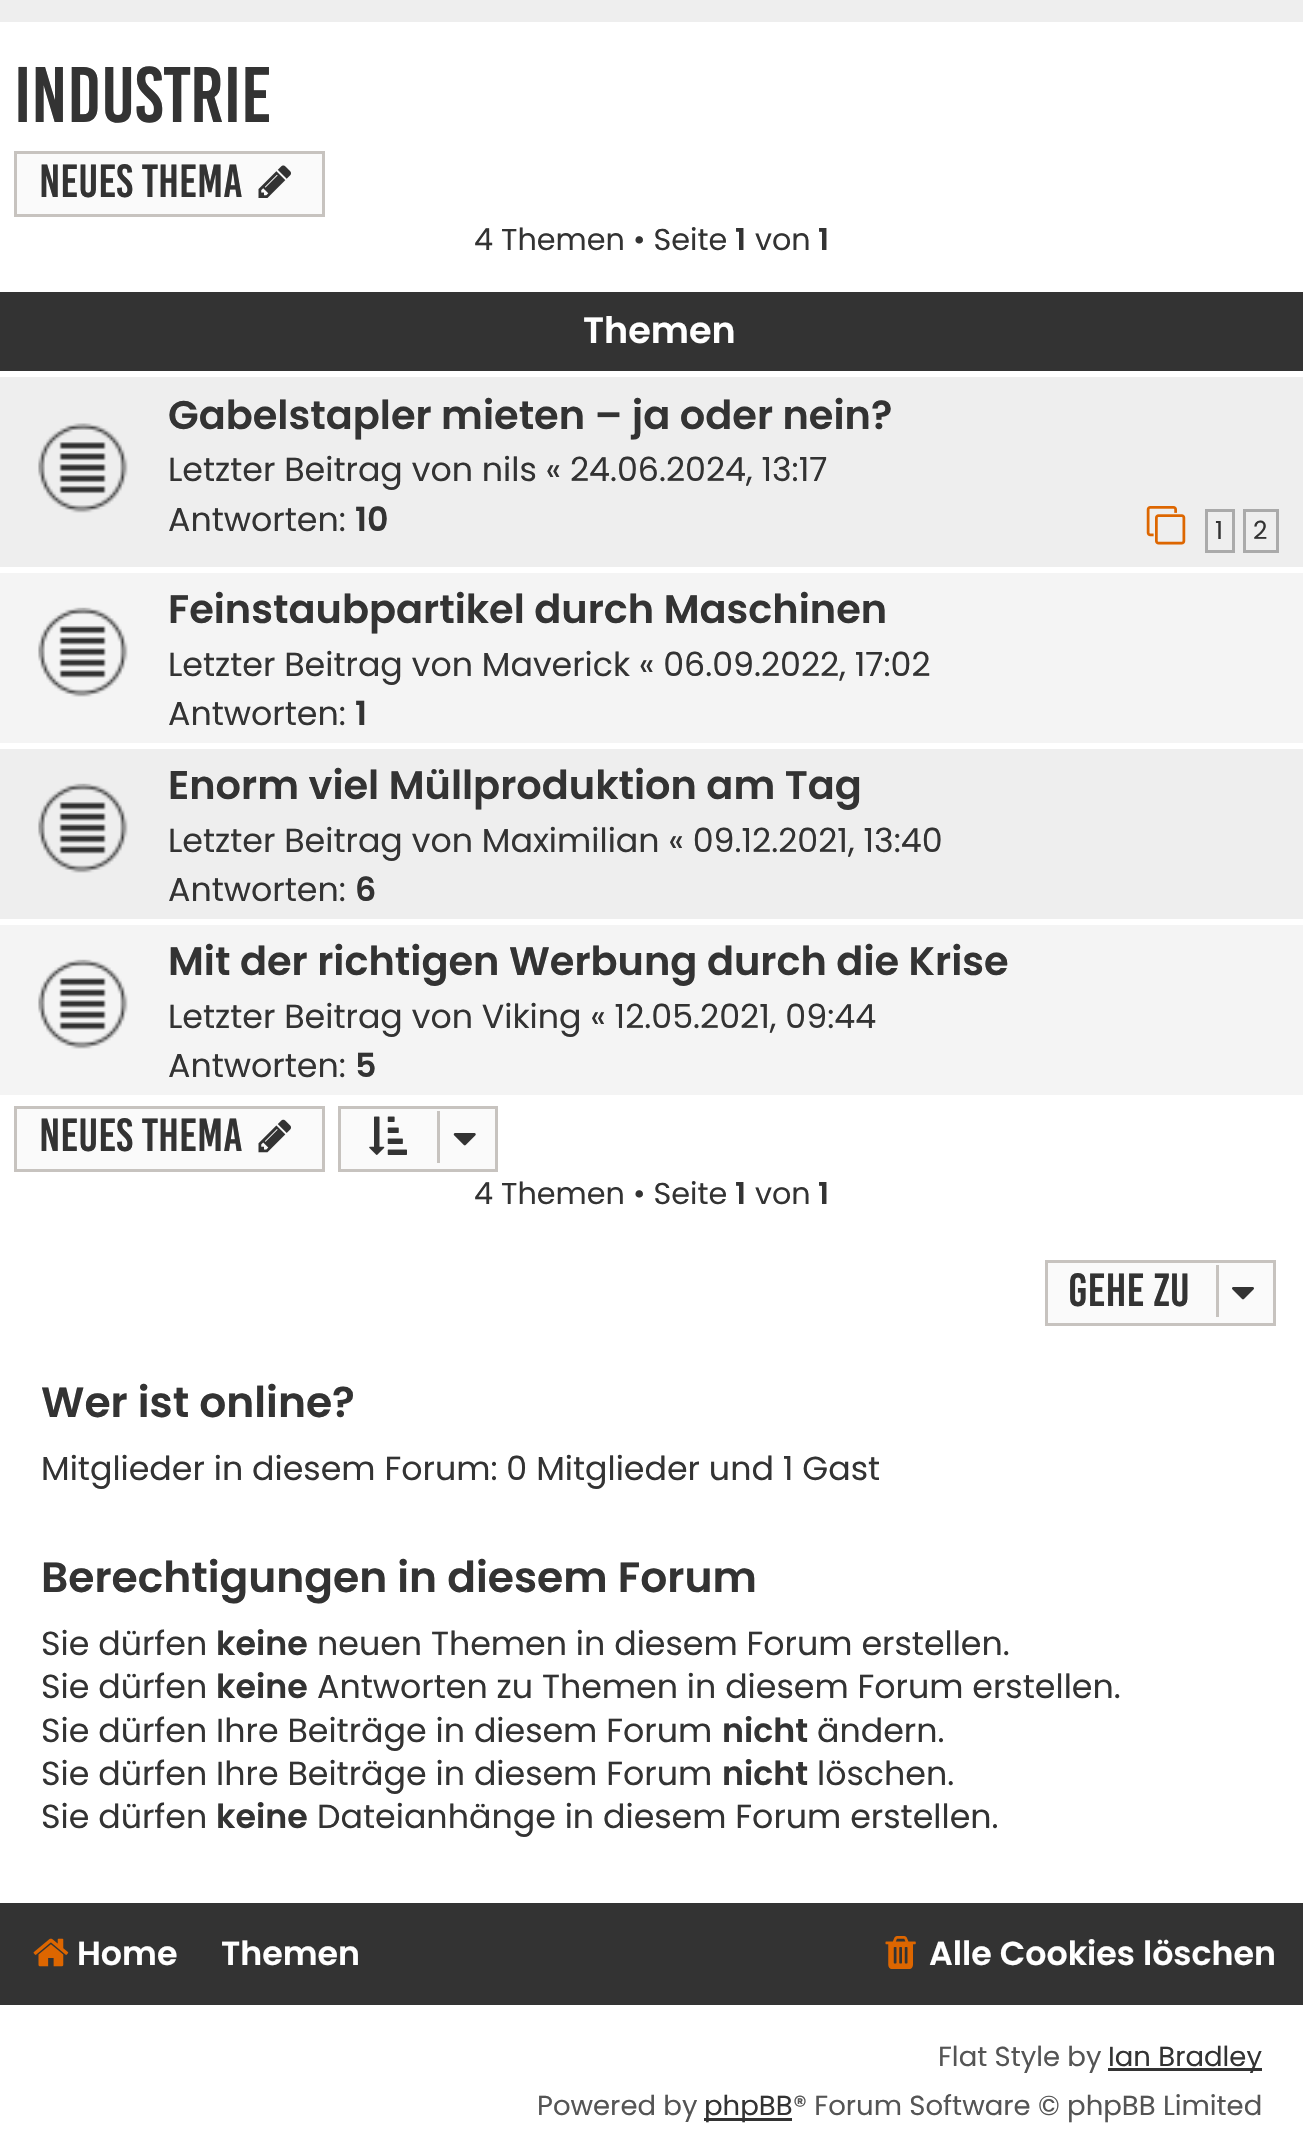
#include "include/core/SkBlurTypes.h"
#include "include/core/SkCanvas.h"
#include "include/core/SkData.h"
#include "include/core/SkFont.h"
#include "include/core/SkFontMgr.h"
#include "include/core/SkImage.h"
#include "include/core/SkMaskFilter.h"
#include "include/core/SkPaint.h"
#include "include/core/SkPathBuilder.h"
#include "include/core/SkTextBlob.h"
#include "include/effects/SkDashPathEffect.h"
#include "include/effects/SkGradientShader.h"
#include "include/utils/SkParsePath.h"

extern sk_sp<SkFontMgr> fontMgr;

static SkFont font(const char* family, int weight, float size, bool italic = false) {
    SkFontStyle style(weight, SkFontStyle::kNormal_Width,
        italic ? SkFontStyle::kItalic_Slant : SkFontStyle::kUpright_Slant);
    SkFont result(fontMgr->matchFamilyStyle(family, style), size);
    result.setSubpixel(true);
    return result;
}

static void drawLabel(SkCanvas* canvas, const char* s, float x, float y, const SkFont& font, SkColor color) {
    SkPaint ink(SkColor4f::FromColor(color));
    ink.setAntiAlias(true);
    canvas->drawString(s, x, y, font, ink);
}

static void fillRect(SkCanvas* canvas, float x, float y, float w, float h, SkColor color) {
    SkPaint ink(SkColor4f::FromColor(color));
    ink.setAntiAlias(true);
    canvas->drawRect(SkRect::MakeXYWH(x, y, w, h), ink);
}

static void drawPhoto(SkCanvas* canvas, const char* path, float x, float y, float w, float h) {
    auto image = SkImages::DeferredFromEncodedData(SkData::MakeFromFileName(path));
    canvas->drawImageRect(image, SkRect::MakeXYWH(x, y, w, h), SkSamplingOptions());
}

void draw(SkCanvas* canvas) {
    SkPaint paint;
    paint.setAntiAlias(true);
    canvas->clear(0xFFFFFFFF);
    fillRect(canvas, 0, 0, 1303, 22, 0xFFEEEEEE);
    SkFont font1 = font("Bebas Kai", 400, 60.5f);
    drawLabel(canvas, "Industrie", 14, 122, font1, 0xFF333333);
    paint.setColor(0xFFFAFAFA);
    canvas->drawRect(SkRect::MakeXYWH(15.5f, 152.5f, 308, 63), paint);
    paint.setStroke(true);
    paint.setStrokeWidth(3);
    paint.setColor(0xFFC7C3BF);
    canvas->drawRect(SkRect::MakeXYWH(15.5f, 152.5f, 308, 63), paint);
    SkFont font2 = font("Bebas Kai", 400, 35.75f);
    drawLabel(canvas, "Neues Thema", 39, 197, font2, 0xFF333333);
    drawPhoto(canvas, "assets/img1.png", 258, 165, 33, 33);
    SkFont font3 = font("Poppins", 400, 30.25f);
    drawLabel(canvas, "4 Themen • Seite", 474, 250, font3, 0xFF333333);
    SkFont font4 = font("Poppins", 600, 30.25f);
    drawLabel(canvas, "1", 735, 250, font4, 0xFF333333);
    drawLabel(canvas, "von", 755, 250, font3, 0xFF333333);
    drawLabel(canvas, "1", 818, 250, font4, 0xFF333333);
    fillRect(canvas, 0, 292, 1303, 79, 0xFF333333);
    SkFont font5 = font("Poppins", 600, 36.5f);
    drawLabel(canvas, "Themen", 583, 343, font5, 0xFFFFFFFF);
    fillRect(canvas, 0, 377, 1303, 190, 0xFFEEEEEE);
    drawPhoto(canvas, "assets/img2.png", 38, 423, 90, 90);
    SkFont font6 = font("Poppins", 600, 39.9f);
    drawLabel(canvas, "Gabelstapler mieten – ja oder nein?", 168, 429, font6, 0xFF333333);
    SkFont font7 = font("Poppins", 400, 33.25f);
    drawLabel(canvas, "Letzter Beitrag von nils « 24.06.2024, 13:17", 168, 481, font7, 0xFF333333);
    drawLabel(canvas, "Antworten:", 168, 531, font7, 0xFF333333);
    SkFont font8 = font("Poppins", 600, 33.25f);
    drawLabel(canvas, "10", 355, 531, font8, 0xFF333333);
    drawPhoto(canvas, "assets/img3.png", 1146, 506, 40, 39);
    paint.setColor(0xFFAAAAAA);
    canvas->drawRect(SkRect::MakeXYWH(1206.5f, 510.5f, 27, 41), paint);
    SkFont font9 = font("Poppins", 400, 25);
    drawLabel(canvas, "1", 1215, 539, font9, 0xFF333333);
    canvas->drawRect(SkRect::MakeXYWH(1244.5f, 510.5f, 33, 41), paint);
    drawLabel(canvas, "2", 1253, 539, font9, 0xFF333333);
    fillRect(canvas, 0, 573, 1303, 170, 0xFFF4F4F4);
    drawPhoto(canvas, "assets/img4.png", 38, 607, 90, 90);
    drawLabel(canvas, "Feinstaubpartikel durch Maschinen", 168, 623, font6, 0xFF333333);
    drawLabel(canvas, "Letzter Beitrag von Maverick « 06.09.2022, 17:02", 168, 676, font7, 0xFF333333);
    drawLabel(canvas, "Antworten:", 168, 725, font7, 0xFF333333);
    drawLabel(canvas, "1", 355, 725, font8, 0xFF333333);
    fillRect(canvas, 0, 749, 1303, 170, 0xFFEEEEEE);
    drawPhoto(canvas, "assets/img5.png", 38, 783, 90, 90);
    drawLabel(canvas, "Enorm viel Müllproduktion am Tag", 168, 799, font6, 0xFF333333);
    drawLabel(canvas, "Letzter Beitrag von Maximilian « 09.12.2021, 13:40", 168, 852, font7, 0xFF333333);
    drawLabel(canvas, "Antworten:", 168, 901, font7, 0xFF333333);
    drawLabel(canvas, "6", 355, 901, font8, 0xFF333333);
    fillRect(canvas, 0, 925, 1303, 170, 0xFFF4F4F4);
    drawPhoto(canvas, "assets/img6.png", 38, 959, 90, 90);
    drawLabel(canvas, "Mit der richtigen Werbung durch die Krise", 168, 975, font6, 0xFF333333);
    drawLabel(canvas, "Letzter Beitrag von Viking « 12.05.2021, 09:44", 168, 1028, font7, 0xFF333333);
    drawLabel(canvas, "Antworten:", 168, 1077, font7, 0xFF333333);
    drawLabel(canvas, "5", 355, 1077, font8, 0xFF333333);
    paint.setStroke(false);
    paint.setColor(0xFFFAFAFA);
    canvas->drawRect(SkRect::MakeXYWH(15.5f, 1107.5f, 308, 63), paint);
    paint.setStroke(true);
    paint.setColor(0xFFC7C3BF);
    canvas->drawRect(SkRect::MakeXYWH(15.5f, 1107.5f, 308, 63), paint);
    drawLabel(canvas, "Neues Thema", 39, 1151, font2, 0xFF333333);
    drawPhoto(canvas, "assets/img7.png", 258, 1119, 33, 34);
    paint.setStroke(false);
    paint.setColor(0xFFFAFAFA);
    canvas->drawRect(SkRect::MakeXYWH(339.5f, 1107.5f, 157, 63), paint);
    paint.setStroke(true);
    paint.setColor(0xFFC7C3BF);
    canvas->drawRect(SkRect::MakeXYWH(339.5f, 1107.5f, 157, 63), paint);
    drawPhoto(canvas, "assets/img8.png", 369, 1116, 38, 39);
    fillRect(canvas, 437, 1111, 3, 52, 0xFFC7C3BF);
    drawPhoto(canvas, "assets/img9.png", 453, 1133, 23, 13);
    drawLabel(canvas, "4 Themen • Seite", 474, 1204, font3, 0xFF333333);
    drawLabel(canvas, "1", 735, 1204, font4, 0xFF333333);
    drawLabel(canvas, "von", 755, 1204, font3, 0xFF333333);
    drawLabel(canvas, "1", 818, 1204, font4, 0xFF333333);
    paint.setStroke(false);
    paint.setColor(0xFFFAFAFA);
    canvas->drawRect(SkRect::MakeXYWH(1046.5f, 1261.5f, 228, 63), paint);
    paint.setStroke(true);
    paint.setColor(0xFFC7C3BF);
    canvas->drawRect(SkRect::MakeXYWH(1046.5f, 1261.5f, 228, 63), paint);
    drawLabel(canvas, "Gehe zu", 1068, 1306, font2, 0xFF333333);
    fillRect(canvas, 1216, 1265, 3, 52, 0xFFC7C3BF);
    drawPhoto(canvas, "assets/img10.png", 1232, 1287, 22, 13);
    SkFont font10 = font("Poppins", 600, 42.4f);
    drawLabel(canvas, "Wer ist online?", 41, 1417, font10, 0xFF333333);
    drawLabel(canvas, "Mitglieder in diesem Forum: 0 Mitglieder und 1 Gast", 41, 1480, font7, 0xFF333333);
    drawLabel(canvas, "Berechtigungen in diesem Forum", 41, 1592, font10, 0xFF333333);
    drawLabel(canvas, "Sie dürfen", 41, 1655, font7, 0xFF333333);
    drawLabel(canvas, "keine", 216, 1655, font8, 0xFF333333);
    drawLabel(canvas, "neuen Themen in diesem Forum erstellen.", 317, 1655, font7, 0xFF333333);
    drawLabel(canvas, "Sie dürfen", 41, 1698, font7, 0xFF333333);
    drawLabel(canvas, "keine", 216, 1698, font8, 0xFF333333);
    drawLabel(canvas, "Antworten zu Themen in diesem Forum erstellen.", 317, 1698, font7, 0xFF333333);
    drawLabel(canvas, "Sie dürfen Ihre Beiträge in diesem Forum", 41, 1742, font7, 0xFF333333);
    drawLabel(canvas, "nicht", 722, 1742, font8, 0xFF333333);
    drawLabel(canvas, "ändern.", 817, 1742, font7, 0xFF333333);
    drawLabel(canvas, "Sie dürfen Ihre Beiträge in diesem Forum", 41, 1785, font7, 0xFF333333);
    drawLabel(canvas, "nicht", 722, 1785, font8, 0xFF333333);
    drawLabel(canvas, "löschen.", 817, 1785, font7, 0xFF333333);
    drawLabel(canvas, "Sie dürfen", 41, 1828, font7, 0xFF333333);
    drawLabel(canvas, "keine", 216, 1828, font8, 0xFF333333);
    drawLabel(canvas, "Dateianhänge in diesem Forum erstellen.", 317, 1828, font7, 0xFF333333);
    fillRect(canvas, 0, 1903, 1303, 102, 0xFF333333);
    drawPhoto(canvas, "assets/img11.png", 33, 1938, 36, 29);
    drawLabel(canvas, "Home", 77, 1965, font8, 0xFFFFFFFF);
    drawLabel(canvas, "Themen", 221, 1965, font8, 0xFFFFFFFF);
    drawPhoto(canvas, "assets/img12.png", 885, 1936, 31, 33);
    drawLabel(canvas, "Alle Cookies löschen", 929, 1965, font8, 0xFFFFFFFF);
    SkFont font11 = font("Poppins", 400, 27.5f);
    drawLabel(canvas, "Flat Style by", 938, 2066, font11, 0xFF555555);
    fillRect(canvas, 1108, 2068, 154, 3, 0xFF333333);
    drawLabel(canvas, "Ian Bradley", 1108, 2066, font11, 0xFF333333);
    drawLabel(canvas, "Powered by", 537, 2115, font11, 0xFF555555);
    fillRect(canvas, 704, 2118, 88, 3, 0xFF333333);
    drawLabel(canvas, "phpBB", 704, 2115, font11, 0xFF333333);
    drawLabel(canvas, "® Forum Software © phpBB Limited", 793, 2115, font11, 0xFF555555);
}
